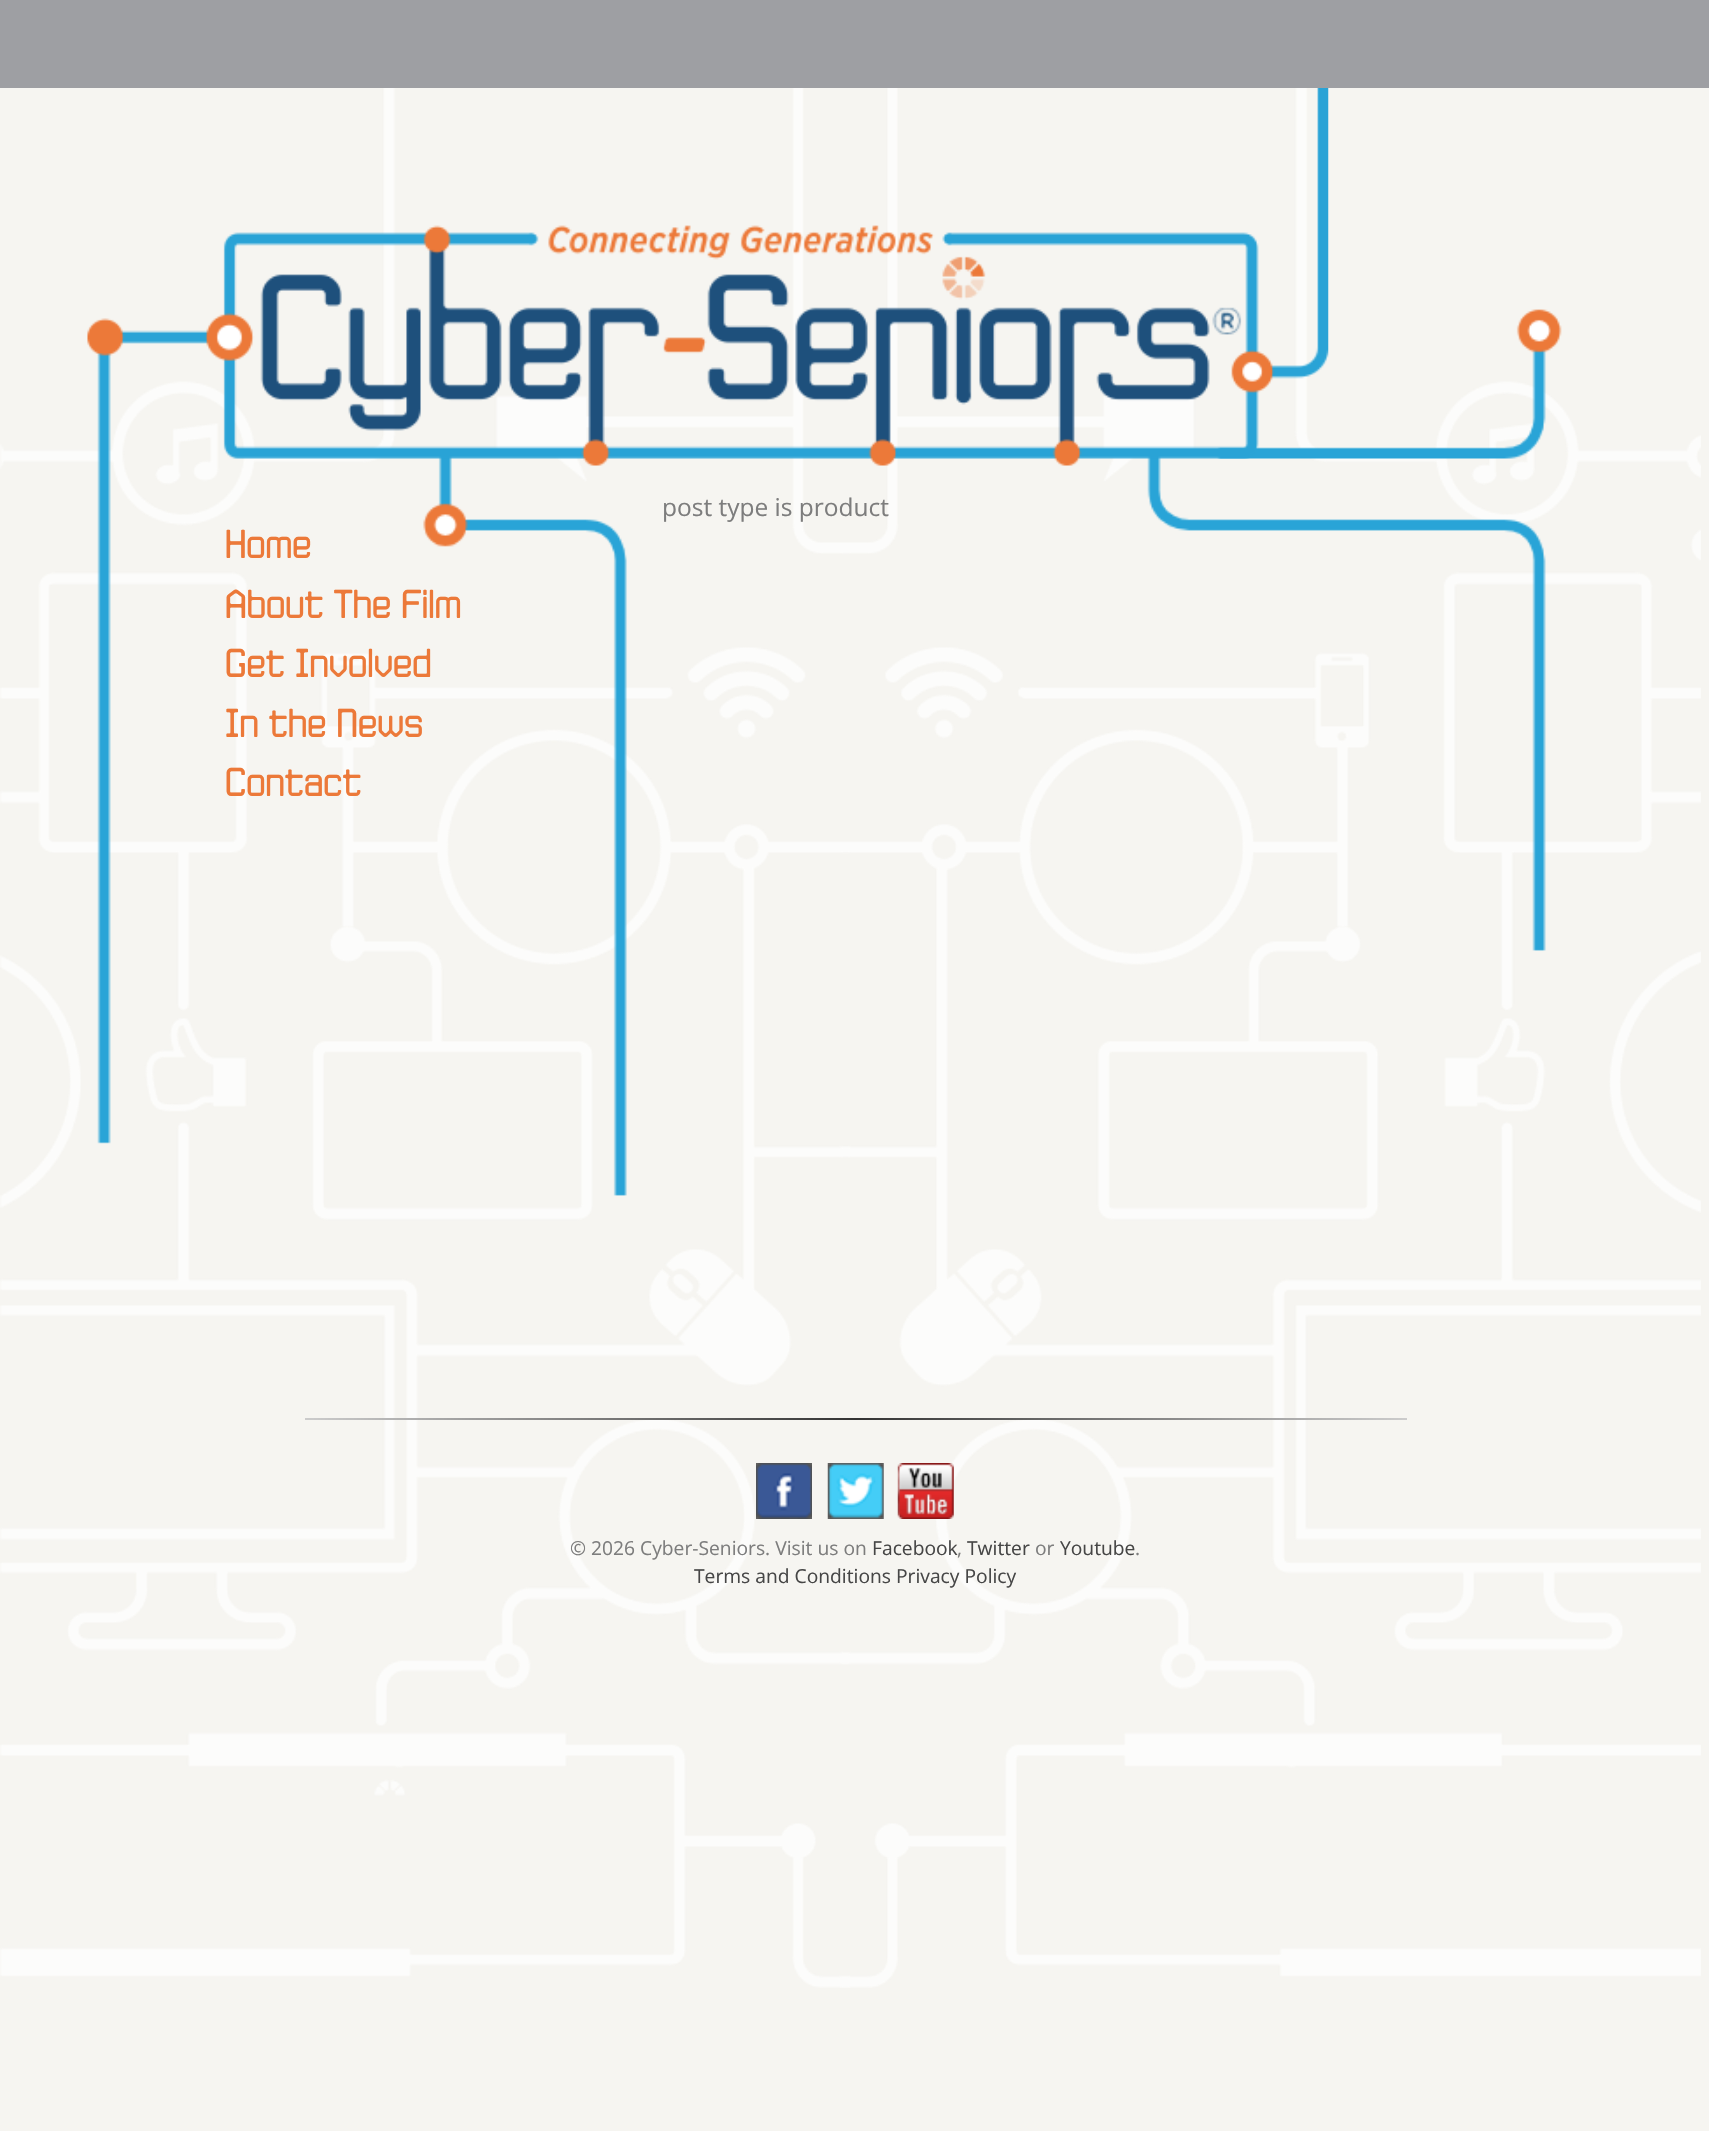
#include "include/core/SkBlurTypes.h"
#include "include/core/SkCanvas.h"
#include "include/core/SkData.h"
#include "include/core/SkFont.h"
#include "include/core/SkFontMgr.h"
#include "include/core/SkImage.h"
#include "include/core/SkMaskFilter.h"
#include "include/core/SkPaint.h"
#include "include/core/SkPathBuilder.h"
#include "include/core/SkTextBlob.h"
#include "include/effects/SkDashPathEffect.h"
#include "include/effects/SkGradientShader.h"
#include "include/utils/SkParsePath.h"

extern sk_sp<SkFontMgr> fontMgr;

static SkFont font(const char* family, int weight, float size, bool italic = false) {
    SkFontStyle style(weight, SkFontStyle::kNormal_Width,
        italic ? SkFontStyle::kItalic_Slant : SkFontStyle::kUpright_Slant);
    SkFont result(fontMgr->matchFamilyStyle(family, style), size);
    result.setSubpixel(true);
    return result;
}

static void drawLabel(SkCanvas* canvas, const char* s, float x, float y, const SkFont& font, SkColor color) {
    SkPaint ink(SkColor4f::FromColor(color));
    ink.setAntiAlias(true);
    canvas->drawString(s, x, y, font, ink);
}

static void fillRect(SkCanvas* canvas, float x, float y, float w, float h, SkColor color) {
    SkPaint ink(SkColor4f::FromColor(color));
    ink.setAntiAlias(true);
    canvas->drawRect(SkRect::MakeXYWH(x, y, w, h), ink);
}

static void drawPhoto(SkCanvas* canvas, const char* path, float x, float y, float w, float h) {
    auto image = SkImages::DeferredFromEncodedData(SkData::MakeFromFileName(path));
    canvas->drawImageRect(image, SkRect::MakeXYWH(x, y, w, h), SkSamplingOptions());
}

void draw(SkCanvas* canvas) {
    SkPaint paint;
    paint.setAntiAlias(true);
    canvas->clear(0xFFF6F5F1);
    drawPhoto(canvas, "assets/img1.png", 0, 88, 1701, 1900);
    fillRect(canvas, 0, 0, 1709, 88, 0xFF9E9FA3);
    drawPhoto(canvas, "assets/img3.png", 97, 309, 1465, 887);
    drawPhoto(canvas, "assets/img2.png", 87, 88, 1242, 378);
    SkFont font1 = font("Open Sans", 400, 24.5f);
    drawLabel(canvas, "post type is product", 662, 516, font1, 0xFF7D7D7D);
    SkFont font2 = font("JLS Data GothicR", 400, 40.25f);
    drawLabel(canvas, "Home", 225, 558, font2, 0xFFEC7939);
    drawLabel(canvas, "About The Film", 225, 618, font2, 0xFFEC7939);
    drawLabel(canvas, "Get Involved", 225, 677, font2, 0xFFEC7939);
    drawLabel(canvas, "In the News", 225, 737, font2, 0xFFEC7939);
    drawLabel(canvas, "Contact", 225, 796, font2, 0xFFEC7939);
    {
        const SkColor colors[] = {0xFFCCCCCC, 0xFF333333, 0xFFCCCCCC};
        const float stops[] = {0, 0.5f, 1};
        const SkPoint ends[] = {{305, 1418}, {1407, 1418}};
        paint.setShader(SkGradientShader::MakeLinear(ends, colors, stops, 3, SkTileMode::kClamp));
        paint.setAlpha(255);
    }
    canvas->drawRect(SkRect::MakeXYWH(305, 1418, 1102, 2), paint);
    drawPhoto(canvas, "assets/img4.png", 756, 1463, 56, 56);
    drawPhoto(canvas, "assets/img5.png", 827, 1463, 57, 56);
    drawPhoto(canvas, "assets/img6.png", 897, 1463, 57, 56);
    SkFont font3 = font("Open Sans", 400, 19.25f);
    drawLabel(canvas, "© 2026 Cyber-Seniors. Visit us on", 570, 1555, font3, 0xFF7D7D7D);
    drawLabel(canvas, "Facebook", 872, 1555, font3, 0xFF464646);
    drawLabel(canvas, ",", 957, 1555, font3, 0xFF7D7D7D);
    drawLabel(canvas, "Twitter", 967, 1555, font3, 0xFF464646);
    drawLabel(canvas, "or", 1035, 1555, font3, 0xFF7D7D7D);
    drawLabel(canvas, "Youtube", 1060, 1555, font3, 0xFF464646);
    drawLabel(canvas, ".", 1135, 1555, font3, 0xFF7D7D7D);
    drawLabel(canvas, "Terms and Conditions Privacy Policy", 694, 1583, font3, 0xFF464646);
}
